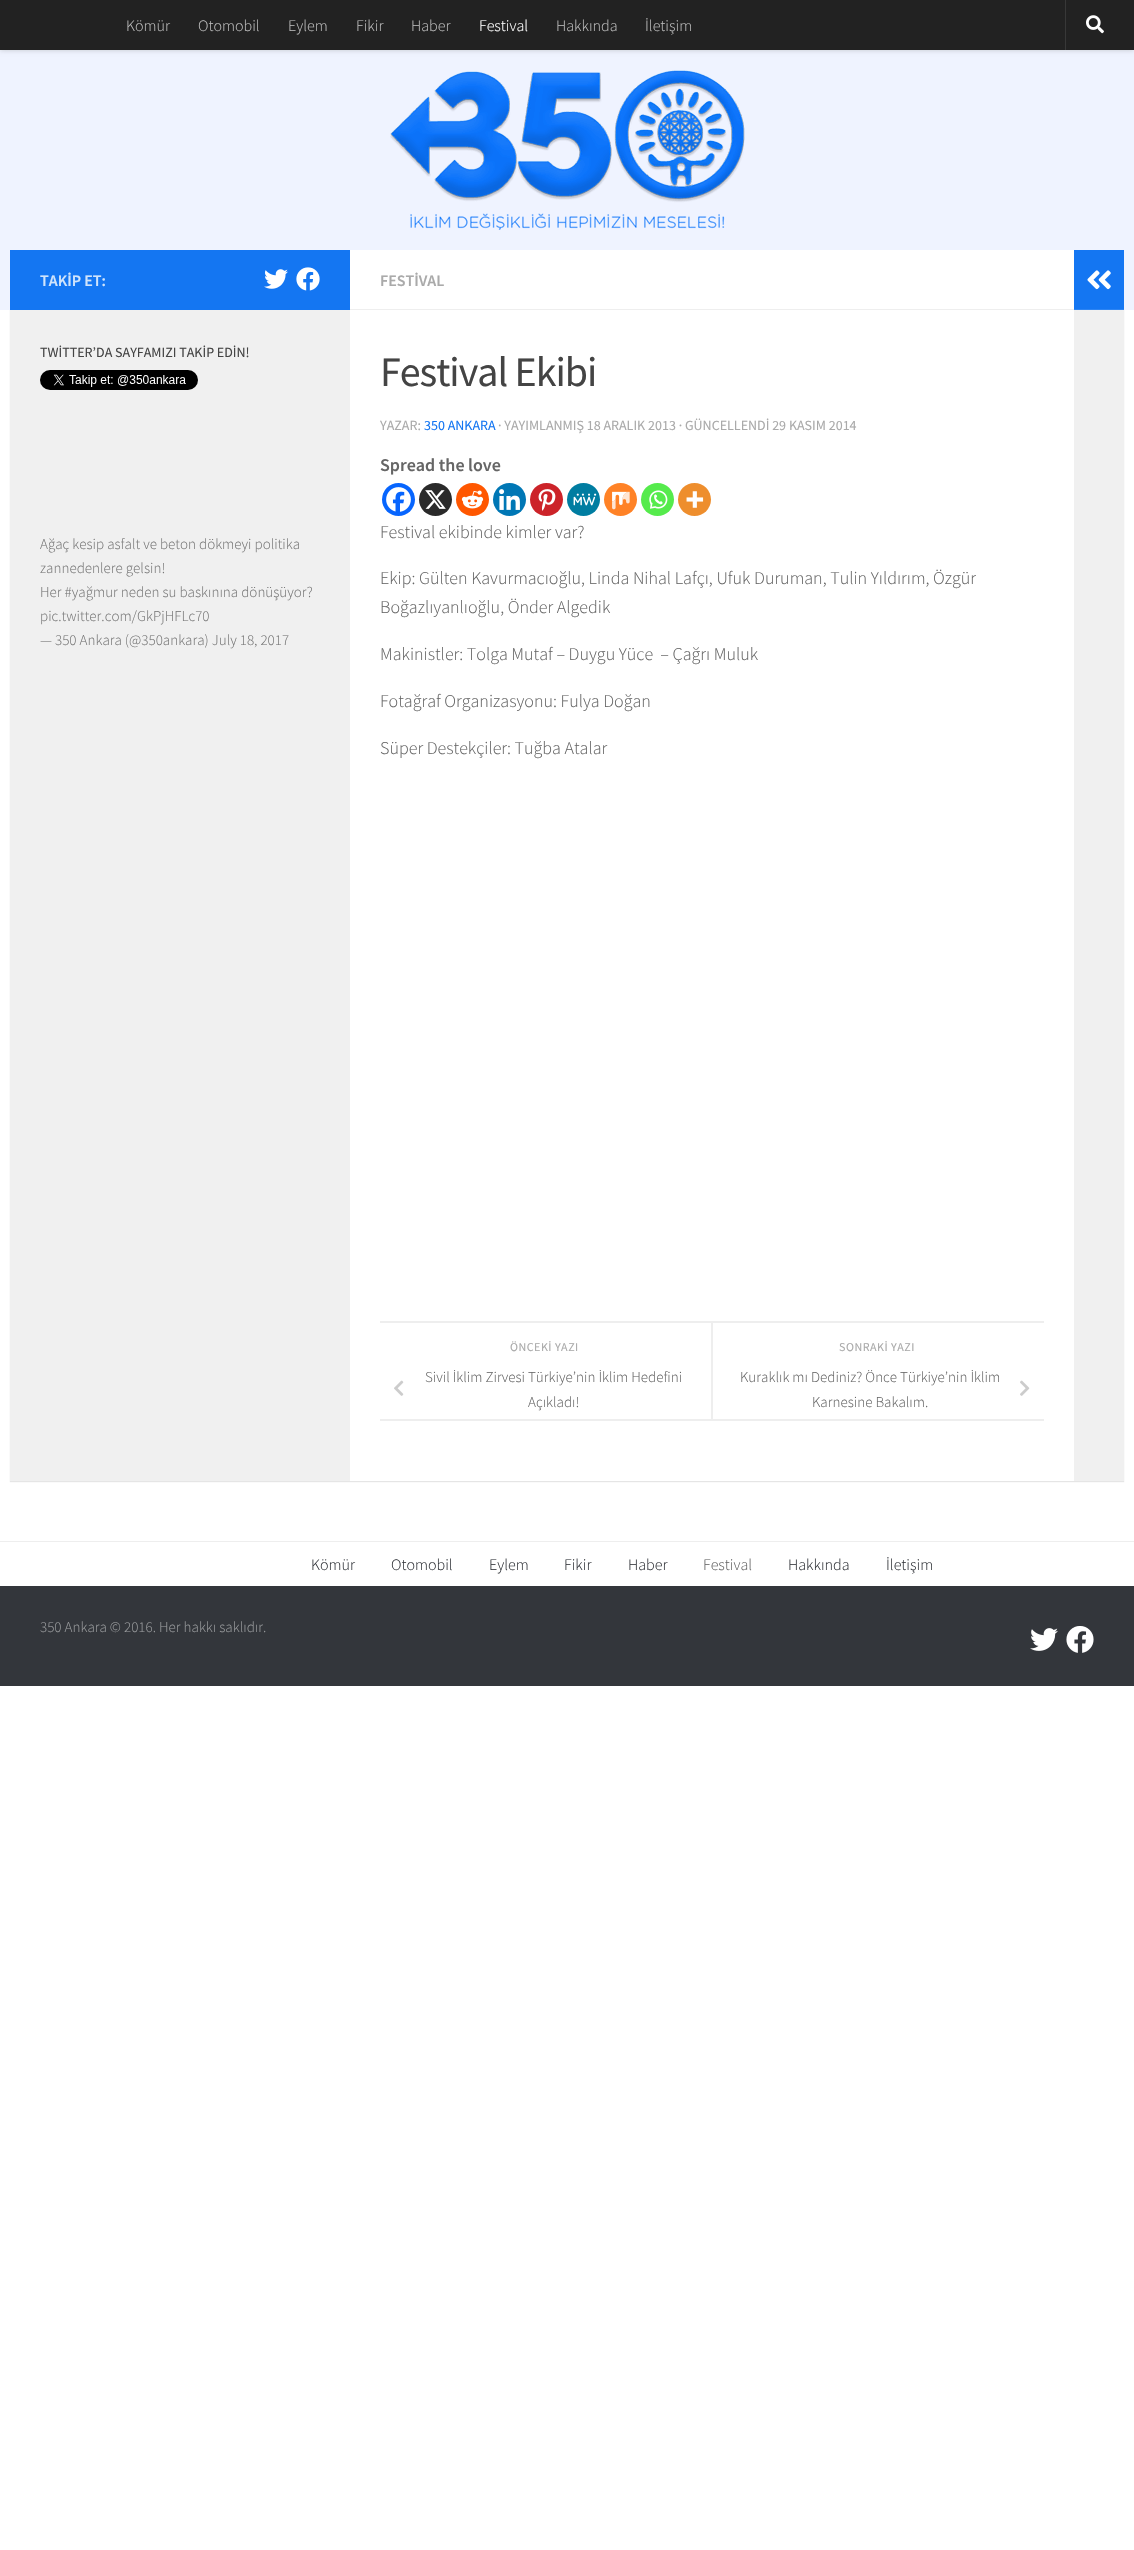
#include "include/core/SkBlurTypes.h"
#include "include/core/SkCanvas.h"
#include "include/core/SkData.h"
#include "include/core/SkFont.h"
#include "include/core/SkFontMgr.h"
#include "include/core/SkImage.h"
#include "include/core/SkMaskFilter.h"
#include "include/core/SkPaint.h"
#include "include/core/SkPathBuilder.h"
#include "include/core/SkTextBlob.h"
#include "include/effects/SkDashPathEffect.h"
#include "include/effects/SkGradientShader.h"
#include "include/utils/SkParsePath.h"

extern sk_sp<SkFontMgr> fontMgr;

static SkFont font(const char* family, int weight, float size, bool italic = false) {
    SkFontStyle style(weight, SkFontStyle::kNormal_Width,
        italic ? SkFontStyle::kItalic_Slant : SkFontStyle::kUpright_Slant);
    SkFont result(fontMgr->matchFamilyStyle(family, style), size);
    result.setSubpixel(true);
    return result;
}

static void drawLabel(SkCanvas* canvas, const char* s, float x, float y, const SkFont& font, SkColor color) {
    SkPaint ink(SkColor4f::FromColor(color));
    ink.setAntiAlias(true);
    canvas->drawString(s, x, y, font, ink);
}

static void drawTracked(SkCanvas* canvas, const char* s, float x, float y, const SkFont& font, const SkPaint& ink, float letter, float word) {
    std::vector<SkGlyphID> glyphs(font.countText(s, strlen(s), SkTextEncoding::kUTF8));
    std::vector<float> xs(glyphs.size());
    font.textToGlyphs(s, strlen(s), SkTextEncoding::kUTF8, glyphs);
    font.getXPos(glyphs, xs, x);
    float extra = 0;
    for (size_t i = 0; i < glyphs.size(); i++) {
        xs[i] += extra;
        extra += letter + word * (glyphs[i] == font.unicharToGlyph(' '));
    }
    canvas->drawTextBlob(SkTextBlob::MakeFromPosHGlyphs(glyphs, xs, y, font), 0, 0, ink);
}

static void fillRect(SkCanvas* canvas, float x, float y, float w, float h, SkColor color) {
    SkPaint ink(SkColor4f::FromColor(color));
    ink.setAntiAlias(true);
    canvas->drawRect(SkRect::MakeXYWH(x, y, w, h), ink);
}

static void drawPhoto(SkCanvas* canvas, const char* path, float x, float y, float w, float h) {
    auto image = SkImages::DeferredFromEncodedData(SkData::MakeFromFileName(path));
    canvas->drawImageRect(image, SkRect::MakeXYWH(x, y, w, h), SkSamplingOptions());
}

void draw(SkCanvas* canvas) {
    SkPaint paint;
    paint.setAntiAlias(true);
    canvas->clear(0xFFFFFFFF);
    paint.setColor(0x1A000000);
    paint.setMaskFilter(SkMaskFilter::MakeBlur(kNormal_SkBlurStyle, 0.5f));
    canvas->drawRect(SkRect::MakeXYWH(10, 251, 1114, 1231), paint);
    paint.setMaskFilter(nullptr);
    fillRect(canvas, 0, 51, 1134, 259, 0xFFEFF3FF);
    fillRect(canvas, 0, 50, 1134, 1, 0xFFF1F5FF);
    paint.setColor(0x33000000);
    paint.setMaskFilter(SkMaskFilter::MakeBlur(kNormal_SkBlurStyle, 2.5f));
    canvas->drawRect(SkRect::MakeXYWH(0, 0, 1134, 50), paint);
    paint.setMaskFilter(nullptr);
    fillRect(canvas, 0, 0, 1134, 50, 0xFF222222);
    SkFont font1 = font("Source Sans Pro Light", 300, 16);
    drawLabel(canvas, "Kömür", 126, 31, font1, 0xFFBDBDBD);
    drawLabel(canvas, "Otomobil", 198, 31, font1, 0xFFBDBDBD);
    drawLabel(canvas, "Eylem", 288, 31, font1, 0xFFBDBDBD);
    drawLabel(canvas, "Fikir", 356, 31, font1, 0xFFBDBDBD);
    drawLabel(canvas, "Haber", 411, 31, font1, 0xFFBDBDBD);
    drawLabel(canvas, "Festival", 479, 31, font1, 0xFFFFFFFF);
    drawLabel(canvas, "Hakkında", 556, 31, font1, 0xFFBDBDBD);
    drawLabel(canvas, "İletişim", 645, 31, font1, 0xFFBDBDBD);
    fillRect(canvas, 1065, 0, 1, 50, 0xFF383838);
    drawPhoto(canvas, "assets/img1.png", 1086, 15, 18, 19);
    drawPhoto(canvas, "assets/img2.png", 390, 70, 355, 160);
    fillRect(canvas, 350, 250, 724, 1231, 0xFFFFFFFF);
    fillRect(canvas, 10, 250, 340, 60, 0xFF1476F2);
    SkFont font2 = font("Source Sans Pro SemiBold", 600, 16);
    drawLabel(canvas, "TAKİP ET:", 40, 286, font2, 0xFFD0E4FC);
    drawPhoto(canvas, "assets/img3.png", 264, 269, 24, 20);
    drawPhoto(canvas, "assets/img4.png", 296, 267, 24, 24);
    fillRect(canvas, 10, 310, 340, 1171, 0xFFF0F0F0);
    SkFont font3 = font("Source Sans Pro", 400, 14);
    drawLabel(canvas, "TWİTTER’DA SAYFAMIZI TAKİP EDİN!", 40, 357, font3, 0xFF444444);
    drawPhoto(canvas, "assets/img5.png", 40, 370, 158, 20);
    SkFont font4 = font("Source Sans Pro Light", 300, 15);
    drawLabel(canvas, "Ağaç kesip asfalt ve beton dökmeyi politika", 40, 549, font4, 0xFF777777);
    drawLabel(canvas, "zannedenlere gelsin!", 40, 573, font4, 0xFF777777);
    drawLabel(canvas, "Her #yağmur neden su baskınına dönüşüyor?", 40, 597, font4, 0xFF777777);
    drawLabel(canvas, "pic.twitter.com/GkPjHFLc70", 40, 621, font4, 0xFF777777);
    drawLabel(canvas, "— 350 Ankara (@350ankara) July 18, 2017", 40, 645, font4, 0xFF777777);
    fillRect(canvas, 350, 309, 724, 1, 0xFFEEEEEE);
    drawLabel(canvas, "FESTİVAL", 380, 286, font2, 0xFFAAAAAA);
    SkFont font5 = font("Source Sans Pro", 400, 42);
    paint.setColor(0xFF444444);
    drawTracked(canvas, "Festival Ekibi", 380, 386, font5, paint, -1, 0);
    drawLabel(canvas, "YAZAR:", 380, 430, font3, 0xFFAAAAAA);
    drawLabel(canvas, "350 ANKARA", 424, 430, font3, 0xFF1476F2);
    drawLabel(canvas, "· YAYIMLANMIŞ 18 ARALIK 2013 · GÜNCELLENDİ 29 KASIM 2014", 498, 430, font3, 0xFFAAAAAA);
    SkFont font6 = font("Source Sans Pro SemiBold", 600, 18);
    drawLabel(canvas, "Spread the love", 380, 471, font6, 0xFF666666);
    paint.setColor(0xFF0765FE);
    canvas->drawCircle(398.5f, 499.5f, 16.5f, paint);
    drawPhoto(canvas, "assets/img6.png", 386, 487, 25, 25);
    paint.setColor(0xFF2A2A2A);
    canvas->drawCircle(435.5f, 499.5f, 16.5f, paint);
    drawPhoto(canvas, "assets/img7.png", 425, 490, 21, 19);
    paint.setColor(0xFFFF5700);
    canvas->drawCircle(472.5f, 499.5f, 16.5f, paint);
    drawPhoto(canvas, "assets/img8.png", 461, 490, 23, 19);
    paint.setColor(0xFF0077B5);
    canvas->drawCircle(509.5f, 499.5f, 16.5f, paint);
    drawPhoto(canvas, "assets/img9.png", 499, 489, 21, 21);
    paint.setColor(0xFFCC2329);
    canvas->drawCircle(546.5f, 499.5f, 16.5f, paint);
    drawPhoto(canvas, "assets/img10.png", 538, 489, 18, 22);
    paint.setColor(0xFF007DA1);
    canvas->drawCircle(583.5f, 499.5f, 16.5f, paint);
    drawPhoto(canvas, "assets/img11.png", 573, 493, 24, 13);
    paint.setColor(0xFFFF8226);
    canvas->drawCircle(620.5f, 499.5f, 16.5f, paint);
    drawPhoto(canvas, "assets/img12.png", 612, 491, 18, 19);
    paint.setColor(0xFF55EB4C);
    canvas->drawCircle(657.5f, 499.5f, 16.5f, paint);
    drawPhoto(canvas, "assets/img13.png", 649, 490, 19, 19);
    paint.setColor(0xFFEE8E2D);
    canvas->drawCircle(694.5f, 499.5f, 16.5f, paint);
    drawPhoto(canvas, "assets/img14.png", 686, 491, 18, 17);
    SkFont font7 = font("Source Sans Pro Light", 300, 18);
    drawLabel(canvas, "Festival ekibinde kimler var?", 380, 538, font7, 0xFF666666);
    drawLabel(canvas, "Ekip: Gülten Kavurmacıoğlu, Linda Nihal Lafçı, Ufuk Duruman, Tulin Yıldırım, Özgür", 380, 584, font7, 0xFF666666);
    drawLabel(canvas, "Boğazlıyanlıoğlu, Önder Algedik", 380, 613, font7, 0xFF666666);
    drawLabel(canvas, "Makinistler: Tolga Mutaf – Duygu Yüce  – Çağrı Muluk", 380, 660, font7, 0xFF666666);
    drawLabel(canvas, "Fotağraf Organizasyonu: Fulya Doğan", 380, 707, font7, 0xFF666666);
    drawLabel(canvas, "Süper Destekçiler: Tuğba Atalar", 380, 754, font7, 0xFF666666);
    fillRect(canvas, 380, 1321, 664, 2, 0xFFEEEEEE);
    fillRect(canvas, 380, 1419, 664, 2, 0xFFEEEEEE);
    SkFont font8 = font("Source Sans Pro", 400, 12);
    paint.setColor(0xFFAAAAAA);
    drawTracked(canvas, "ÖNCEKİ YAZI", 510, 1351, font8, paint, 0.5f, 0);
    drawLabel(canvas, "Sivil İklim Zirvesi Türkiye’nin İklim Hedefini", 425, 1382, font4, 0xFF666666);
    drawPhoto(canvas, "assets/img15.png", 394, 1380, 10, 16);
    drawLabel(canvas, "Açıkladı!", 528, 1407, font4, 0xFF666666);
    fillRect(canvas, 711, 1323, 2, 96, 0xFFEEEEEE);
    drawTracked(canvas, "SONRAKİ YAZI", 839, 1351, font8, paint, 0.5f, 0);
    drawLabel(canvas, "Kuraklık mı Dediniz? Önce Türkiye’nin İklim", 740, 1382, font4, 0xFF666666);
    drawPhoto(canvas, "assets/img16.png", 1020, 1380, 10, 16);
    drawLabel(canvas, "Karnesine Bakalım.", 812, 1407, font4, 0xFF666666);
    fillRect(canvas, 1074, 250, 50, 59, 0xFF1476F2);
    fillRect(canvas, 1074, 309, 50, 1, 0xFF2C84F3);
    drawPhoto(canvas, "assets/img17.png", 1087, 270, 24, 20);
    fillRect(canvas, 1074, 310, 50, 1171, 0xFFF0F0F0);
    fillRect(canvas, 0, 1541, 1134, 1, 0xFFEEEEEE);
    drawLabel(canvas, "Kömür", 311, 1570, font1, 0xFF33363B);
    drawLabel(canvas, "Otomobil", 391, 1570, font1, 0xFF33363B);
    drawLabel(canvas, "Eylem", 489, 1570, font1, 0xFF33363B);
    drawLabel(canvas, "Fikir", 564, 1570, font1, 0xFF33363B);
    drawLabel(canvas, "Haber", 628, 1570, font1, 0xFF33363B);
    drawLabel(canvas, "Festival", 703, 1570, font1, 0xFF666666);
    drawLabel(canvas, "Hakkında", 788, 1570, font1, 0xFF33363B);
    drawLabel(canvas, "İletişim", 886, 1570, font1, 0xFF33363B);
    fillRect(canvas, 0, 1586, 1134, 100, 0xFF33363B);
    drawLabel(canvas, "350 Ankara © 2016. Her hakkı saklıdır.", 40, 1632, font4, 0xFF999B9D);
    drawPhoto(canvas, "assets/img18.png", 1030, 1628, 28, 23);
    drawPhoto(canvas, "assets/img19.png", 1066, 1626, 28, 27);
}
